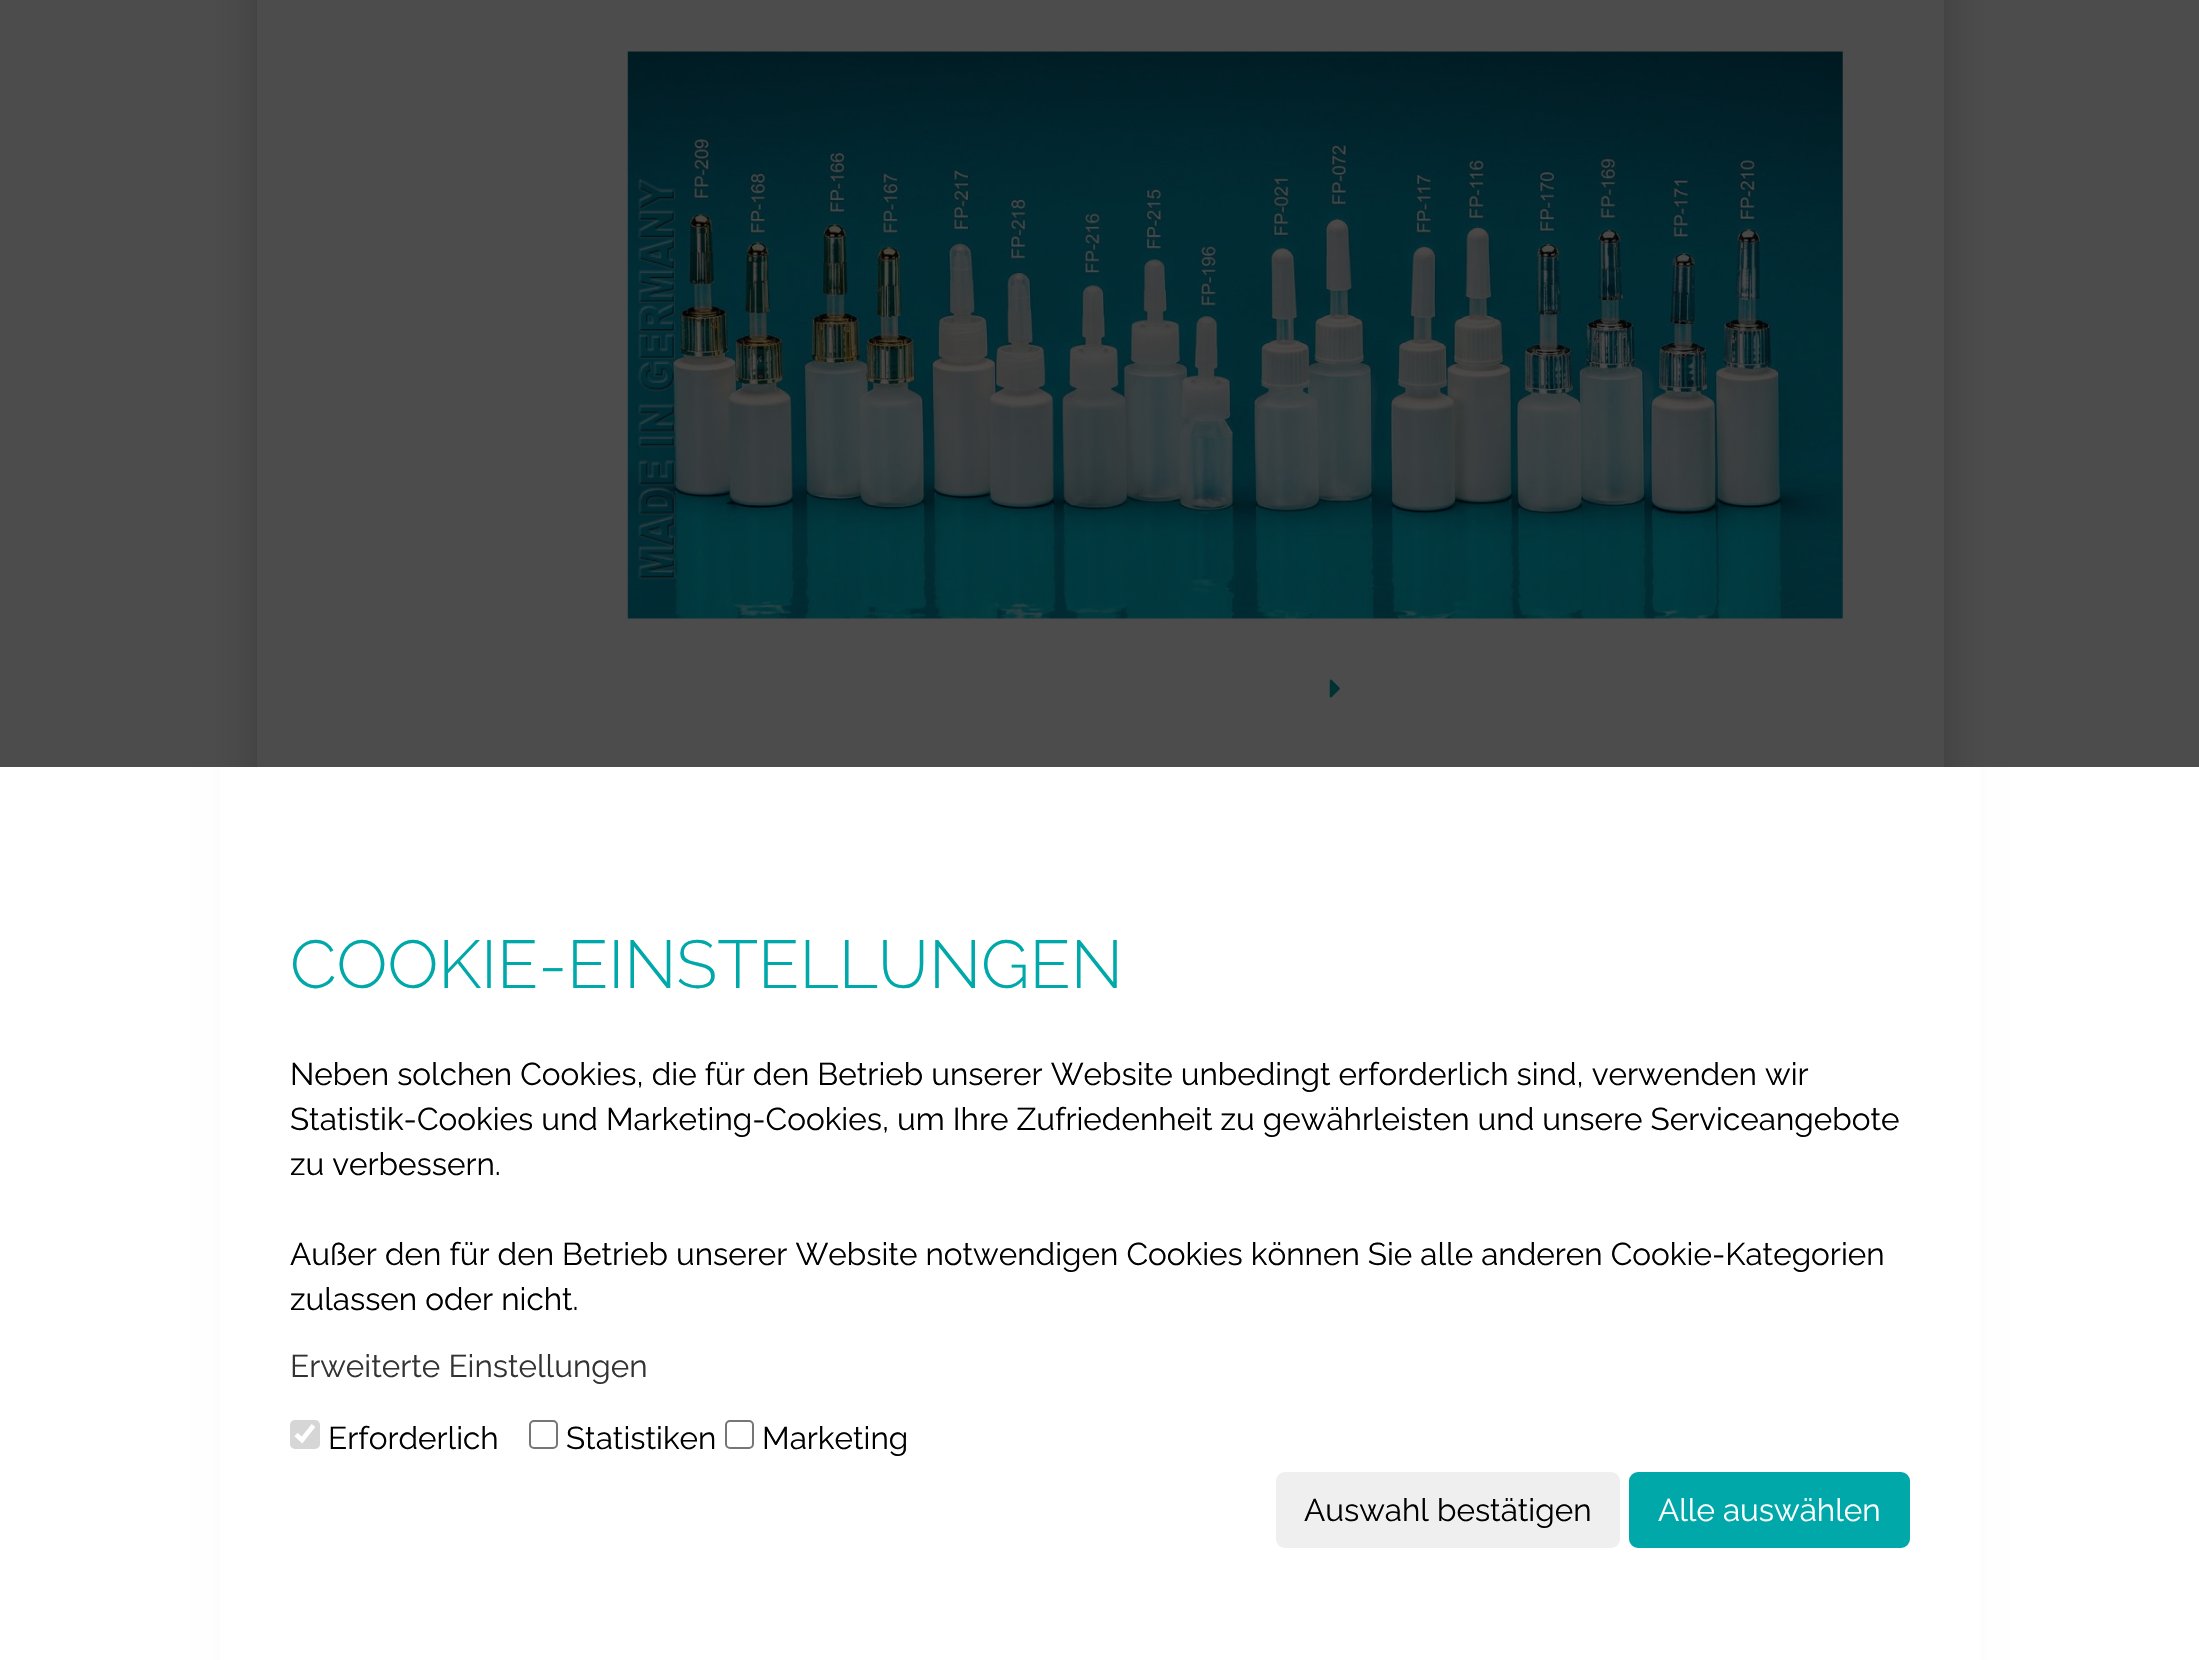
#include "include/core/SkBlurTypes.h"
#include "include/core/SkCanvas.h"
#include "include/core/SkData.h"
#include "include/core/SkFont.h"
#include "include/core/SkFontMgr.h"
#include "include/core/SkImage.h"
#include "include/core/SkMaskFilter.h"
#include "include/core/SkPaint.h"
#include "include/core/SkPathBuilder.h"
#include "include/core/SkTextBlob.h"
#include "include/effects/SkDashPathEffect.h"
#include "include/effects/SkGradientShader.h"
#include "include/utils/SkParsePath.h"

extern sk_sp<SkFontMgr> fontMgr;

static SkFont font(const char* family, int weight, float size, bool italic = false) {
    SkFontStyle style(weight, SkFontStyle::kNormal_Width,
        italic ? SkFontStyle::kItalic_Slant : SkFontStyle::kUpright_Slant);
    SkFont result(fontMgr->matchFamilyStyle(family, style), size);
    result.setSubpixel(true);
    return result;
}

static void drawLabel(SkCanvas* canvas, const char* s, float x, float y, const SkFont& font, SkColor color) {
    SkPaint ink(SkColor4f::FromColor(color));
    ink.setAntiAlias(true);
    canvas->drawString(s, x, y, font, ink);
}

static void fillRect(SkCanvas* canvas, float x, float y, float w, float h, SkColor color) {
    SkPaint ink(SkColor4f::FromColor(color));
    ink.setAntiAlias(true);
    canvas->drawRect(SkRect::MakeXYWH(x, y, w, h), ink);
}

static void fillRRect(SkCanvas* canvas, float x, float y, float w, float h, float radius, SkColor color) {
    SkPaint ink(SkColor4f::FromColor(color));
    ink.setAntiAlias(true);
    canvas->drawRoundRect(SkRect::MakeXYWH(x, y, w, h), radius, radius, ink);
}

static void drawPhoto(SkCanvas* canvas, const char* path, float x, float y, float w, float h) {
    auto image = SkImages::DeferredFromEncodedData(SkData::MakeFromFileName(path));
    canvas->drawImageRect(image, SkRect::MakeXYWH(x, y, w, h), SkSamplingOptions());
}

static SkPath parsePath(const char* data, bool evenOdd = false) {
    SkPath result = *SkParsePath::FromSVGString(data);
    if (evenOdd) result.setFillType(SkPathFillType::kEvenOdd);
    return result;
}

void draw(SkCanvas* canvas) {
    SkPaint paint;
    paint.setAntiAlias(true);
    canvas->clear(0xFFFFFFFF);
    canvas->save();
    canvas->clipPath(parsePath("M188 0H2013V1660H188ZM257-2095H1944V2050H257Z", true), true);
    paint.setColor(0x33000000);
    paint.setMaskFilter(SkMaskFilter::MakeBlur(kNormal_SkBlurStyle, 22.5f));
    canvas->drawRect(SkRect::MakeXYWH(257, -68, 1687, 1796), paint);
    paint.setMaskFilter(nullptr);
    canvas->restore();
    drawPhoto(canvas, "assets/img1.png", 627, 51, 1216, 568);
    drawPhoto(canvas, "assets/img2.png", 638, 178, 38, 402);
    drawPhoto(canvas, "assets/img3.png", 1329, 679, 11, 19);
    fillRect(canvas, 220, 767, 1761, 893, 0xFFFFFFFF);
    fillRect(canvas, 0, 0, 2199, 767, 0xB3000000);
    SkFont font1 = font("Raleway", 300, 67.5f);
    drawLabel(canvas, "COOKIE-EINSTELLUNGEN", 290, 988, font1, 0xFF00A8A9);
    SkFont font2 = font("Raleway", 400, 31.5f);
    drawLabel(canvas, "Neben solchen Cookies, die für den Betrieb unserer Website unbedingt erforderlich sind, verwenden wir", 290, 1085, font2, 0xFF000000);
    drawLabel(canvas, "Statistik-Cookies und Marketing-Cookies, um Ihre Zufriedenheit zu gewährleisten und unsere Serviceangebote", 290, 1130, font2, 0xFF000000);
    drawLabel(canvas, "zu verbessern.", 290, 1175, font2, 0xFF000000);
    drawLabel(canvas, "Außer den für den Betrieb unserer Website notwendigen Cookies können Sie alle anderen Cookie-Kategorien", 290, 1265, font2, 0xFF000000);
    drawLabel(canvas, "zulassen oder nicht.", 290, 1310, font2, 0xFF000000);
    drawLabel(canvas, "Erweiterte Einstellungen", 290, 1377, font2, 0xFF333333);
    fillRRect(canvas, 290, 1420, 30, 29, 5, 0xFFD6D6D6);
    paint.setStroke(true);
    paint.setStrokeWidth(4.7f);
    paint.setColor(0xFFFFFFFF);
    canvas->drawPath(parsePath("M296 1434.5L302 1440L313.5 1425.5"), paint);
    drawLabel(canvas, "Erforderlich", 328, 1449, font2, 0xFF000000);
    paint.setStrokeWidth(2);
    paint.setColor(0xFF767676);
    canvas->drawRoundRect(SkRect::MakeXYWH(530, 1421, 27, 27), 4, 4, paint);
    drawLabel(canvas, "Statistiken", 566, 1449, font2, 0xFF000000);
    canvas->drawRoundRect(SkRect::MakeXYWH(726, 1421, 27, 27), 4, 4, paint);
    drawLabel(canvas, "Marketing", 762, 1449, font2, 0xFF000000);
    fillRRect(canvas, 1276, 1472, 344, 76, 9, 0xFFEFEFEF);
    drawLabel(canvas, "Auswahl bestätigen", 1304, 1521, font2, 0xFF000000);
    paint.setStroke(false);
    paint.setColor(0xFF00A8A9);
    canvas->drawRoundRect(SkRect::MakeXYWH(1630, 1473, 279, 74), 8, 8, paint);
    paint.setStroke(true);
    canvas->drawRoundRect(SkRect::MakeXYWH(1630, 1473, 279, 74), 8, 8, paint);
    drawLabel(canvas, "Alle auswählen", 1658, 1521, font2, 0xFFFFFFFF);
}
